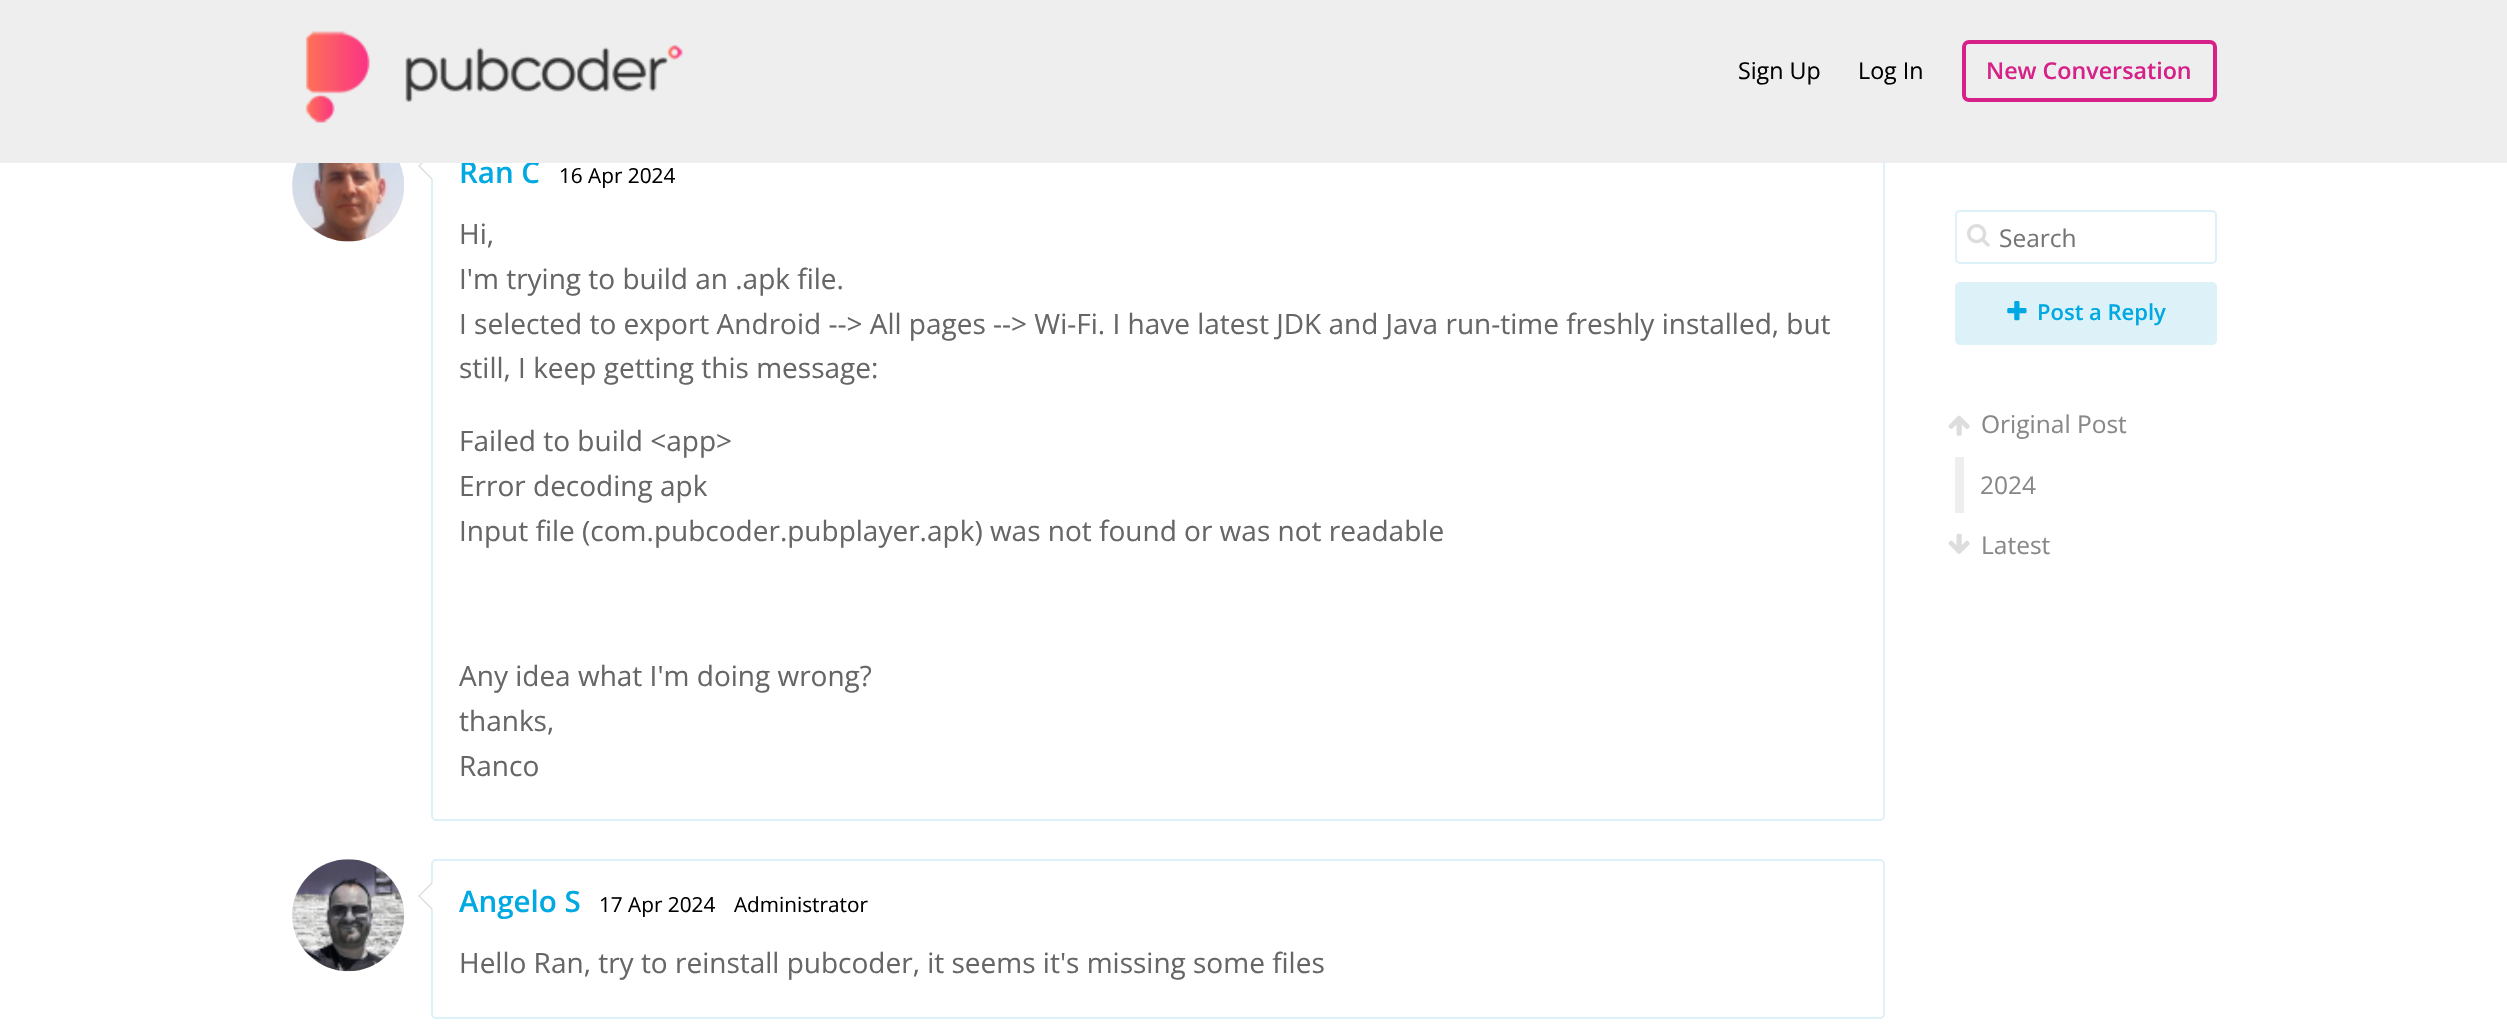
#include "include/core/SkBlurTypes.h"
#include "include/core/SkCanvas.h"
#include "include/core/SkData.h"
#include "include/core/SkFont.h"
#include "include/core/SkFontMgr.h"
#include "include/core/SkImage.h"
#include "include/core/SkMaskFilter.h"
#include "include/core/SkPaint.h"
#include "include/core/SkPathBuilder.h"
#include "include/core/SkTextBlob.h"
#include "include/effects/SkDashPathEffect.h"
#include "include/effects/SkGradientShader.h"
#include "include/utils/SkParsePath.h"

extern sk_sp<SkFontMgr> fontMgr;

static SkFont font(const char* family, int weight, float size, bool italic = false) {
    SkFontStyle style(weight, SkFontStyle::kNormal_Width,
        italic ? SkFontStyle::kItalic_Slant : SkFontStyle::kUpright_Slant);
    SkFont result(fontMgr->matchFamilyStyle(family, style), size);
    result.setSubpixel(true);
    return result;
}

static void drawLabel(SkCanvas* canvas, const char* s, float x, float y, const SkFont& font, SkColor color) {
    SkPaint ink(SkColor4f::FromColor(color));
    ink.setAntiAlias(true);
    canvas->drawString(s, x, y, font, ink);
}

static void fillRect(SkCanvas* canvas, float x, float y, float w, float h, SkColor color) {
    SkPaint ink(SkColor4f::FromColor(color));
    ink.setAntiAlias(true);
    canvas->drawRect(SkRect::MakeXYWH(x, y, w, h), ink);
}

static void fillRRect(SkCanvas* canvas, float x, float y, float w, float h, float radius, SkColor color) {
    SkPaint ink(SkColor4f::FromColor(color));
    ink.setAntiAlias(true);
    canvas->drawRoundRect(SkRect::MakeXYWH(x, y, w, h), radius, radius, ink);
}

static void drawPhoto(SkCanvas* canvas, const char* path, float x, float y, float w, float h) {
    auto image = SkImages::DeferredFromEncodedData(SkData::MakeFromFileName(path));
    canvas->drawImageRect(image, SkRect::MakeXYWH(x, y, w, h), SkSamplingOptions());
}

static SkPath parsePath(const char* data, bool evenOdd = false) {
    SkPath result = *SkParsePath::FromSVGString(data);
    if (evenOdd) result.setFillType(SkPathFillType::kEvenOdd);
    return result;
}

void draw(SkCanvas* canvas) {
    SkPaint paint;
    paint.setAntiAlias(true);
    canvas->clear(0xFFFFFFFF);
    paint.setColor(0xFFEEEEEE);
    canvas->drawCircle(348, 186, 56, paint);
    paint.setStroke(true);
    paint.setStrokeWidth(2);
    paint.setColor(0xFFDCF1F8);
    canvas->drawRoundRect(SkRect::MakeXYWH(432, 131, 1452, 689), 4, 4, paint);
    paint.setStroke(false);
    paint.setColor(0xFFDDDDDD);
    canvas->drawPath(parsePath("M432 152V180L418 166Z"), paint);
    paint.setColor(0xFFFFFFFF);
    canvas->drawPath(parsePath("M434 152V180L420 166Z"), paint);
    SkFont font1 = font("Open Sans", 600, 29.5f);
    drawLabel(canvas, "Ran C", 459, 183, font1, 0xFF00A9E1);
    fillRect(canvas, 0, 0, 2507, 163, 0xFFEEEEEE);
    drawPhoto(canvas, "assets/img1.png", 305, 31, 378, 92);
    SkFont font2 = font("Open Sans", 400, 23.25f);
    drawLabel(canvas, "Sign Up", 1738, 79, font2, 0xFF000000);
    drawLabel(canvas, "Log In", 1858, 79, font2, 0xFF000000);
    paint.setStroke(true);
    paint.setStrokeWidth(4);
    paint.setColor(0xFFD62188);
    canvas->drawRoundRect(SkRect::MakeXYWH(1964, 42, 251, 58), 5, 5, paint);
    SkFont font3 = font("Open Sans", 600, 23.25f);
    drawLabel(canvas, "New Conversation", 1986, 79, font3, 0xFFD62188);
    drawPhoto(canvas, "assets/img2.png", 292, 163, 112, 79);
    SkFont font4 = font("Open Sans", 400, 20.75f);
    drawLabel(canvas, "16 Apr 2024", 559, 183, font4, 0xFF000000);
    SkFont font5 = font("Open Sans", 400, 28);
    drawLabel(canvas, "Hi,", 459, 244, font5, 0xFF666666);
    drawLabel(canvas, "I'm trying to build an .apk file.", 459, 289, font5, 0xFF666666);
    drawLabel(canvas, "I selected to export Android --> All pages --> Wi-Fi. I have latest JDK and Java run-time freshly installed, but", 459, 334, font5, 0xFF666666);
    drawLabel(canvas, "still, I keep getting this message:", 459, 378, font5, 0xFF666666);
    drawLabel(canvas, "Failed to build <app>", 459, 451, font5, 0xFF666666);
    drawLabel(canvas, "Error decoding apk", 459, 496, font5, 0xFF666666);
    drawLabel(canvas, "Input file (com.pubcoder.pubplayer.apk) was not found or was not readable", 459, 541, font5, 0xFF666666);
    drawLabel(canvas, "Any idea what I'm doing wrong?", 459, 686, font5, 0xFF666666);
    drawLabel(canvas, "thanks,", 459, 731, font5, 0xFF666666);
    drawLabel(canvas, "Ranco", 459, 776, font5, 0xFF666666);
    paint.setStroke(false);
    paint.setColor(0xFFEEEEEE);
    canvas->drawCircle(348, 915, 56, paint);
    drawPhoto(canvas, "assets/img3.png", 292, 859, 113, 113);
    paint.setStroke(true);
    paint.setStrokeWidth(2);
    paint.setColor(0xFFDCF1F8);
    canvas->drawRoundRect(SkRect::MakeXYWH(432, 860, 1452, 158), 4, 4, paint);
    paint.setStroke(false);
    paint.setColor(0xFFDDDDDD);
    canvas->drawPath(parsePath("M432 882V910L418 896Z"), paint);
    paint.setColor(0xFFFFFFFF);
    canvas->drawPath(parsePath("M434 882V910L420 896Z"), paint);
    drawLabel(canvas, "Angelo S", 459, 912, font1, 0xFF00A9E1);
    drawLabel(canvas, "17 Apr 2024", 599, 912, font4, 0xFF000000);
    drawLabel(canvas, "Administrator", 734, 912, font4, 0xFF000000);
    drawLabel(canvas, "Hello Ran, try to reinstall pubcoder, it seems it's missing some files", 459, 973, font5, 0xFF666666);
    paint.setStroke(true);
    paint.setColor(0xFFDCF1F8);
    canvas->drawRoundRect(SkRect::MakeXYWH(1956, 211, 260, 52), 4, 4, paint);
    drawPhoto(canvas, "assets/img4.png", 1967, 224, 23, 23);
    SkFont font6 = font("Open Sans", 400, 24.5f);
    drawLabel(canvas, "Search", 1999, 247, font6, 0xFF757575);
    fillRRect(canvas, 1955, 282, 262, 63, 5, 0xFFDCF1F8);
    drawPhoto(canvas, "assets/img5.png", 2007, 301, 20, 20);
    SkFont font7 = font("Open Sans", 600, 22);
    drawLabel(canvas, "Post a Reply", 2037, 320, font7, 0xFF00A9E1);
    drawPhoto(canvas, "assets/img6.png", 1948, 415, 22, 21);
    drawLabel(canvas, "Original Post", 1981, 433, font6, 0xFF888888);
    fillRect(canvas, 1955, 457, 9, 56, 0xFFEEEEEE);
    drawLabel(canvas, "2024", 1980, 494, font6, 0xFF888888);
    drawPhoto(canvas, "assets/img7.png", 1948, 533, 22, 21);
    drawLabel(canvas, "Latest", 1981, 554, font6, 0xFF888888);
}
